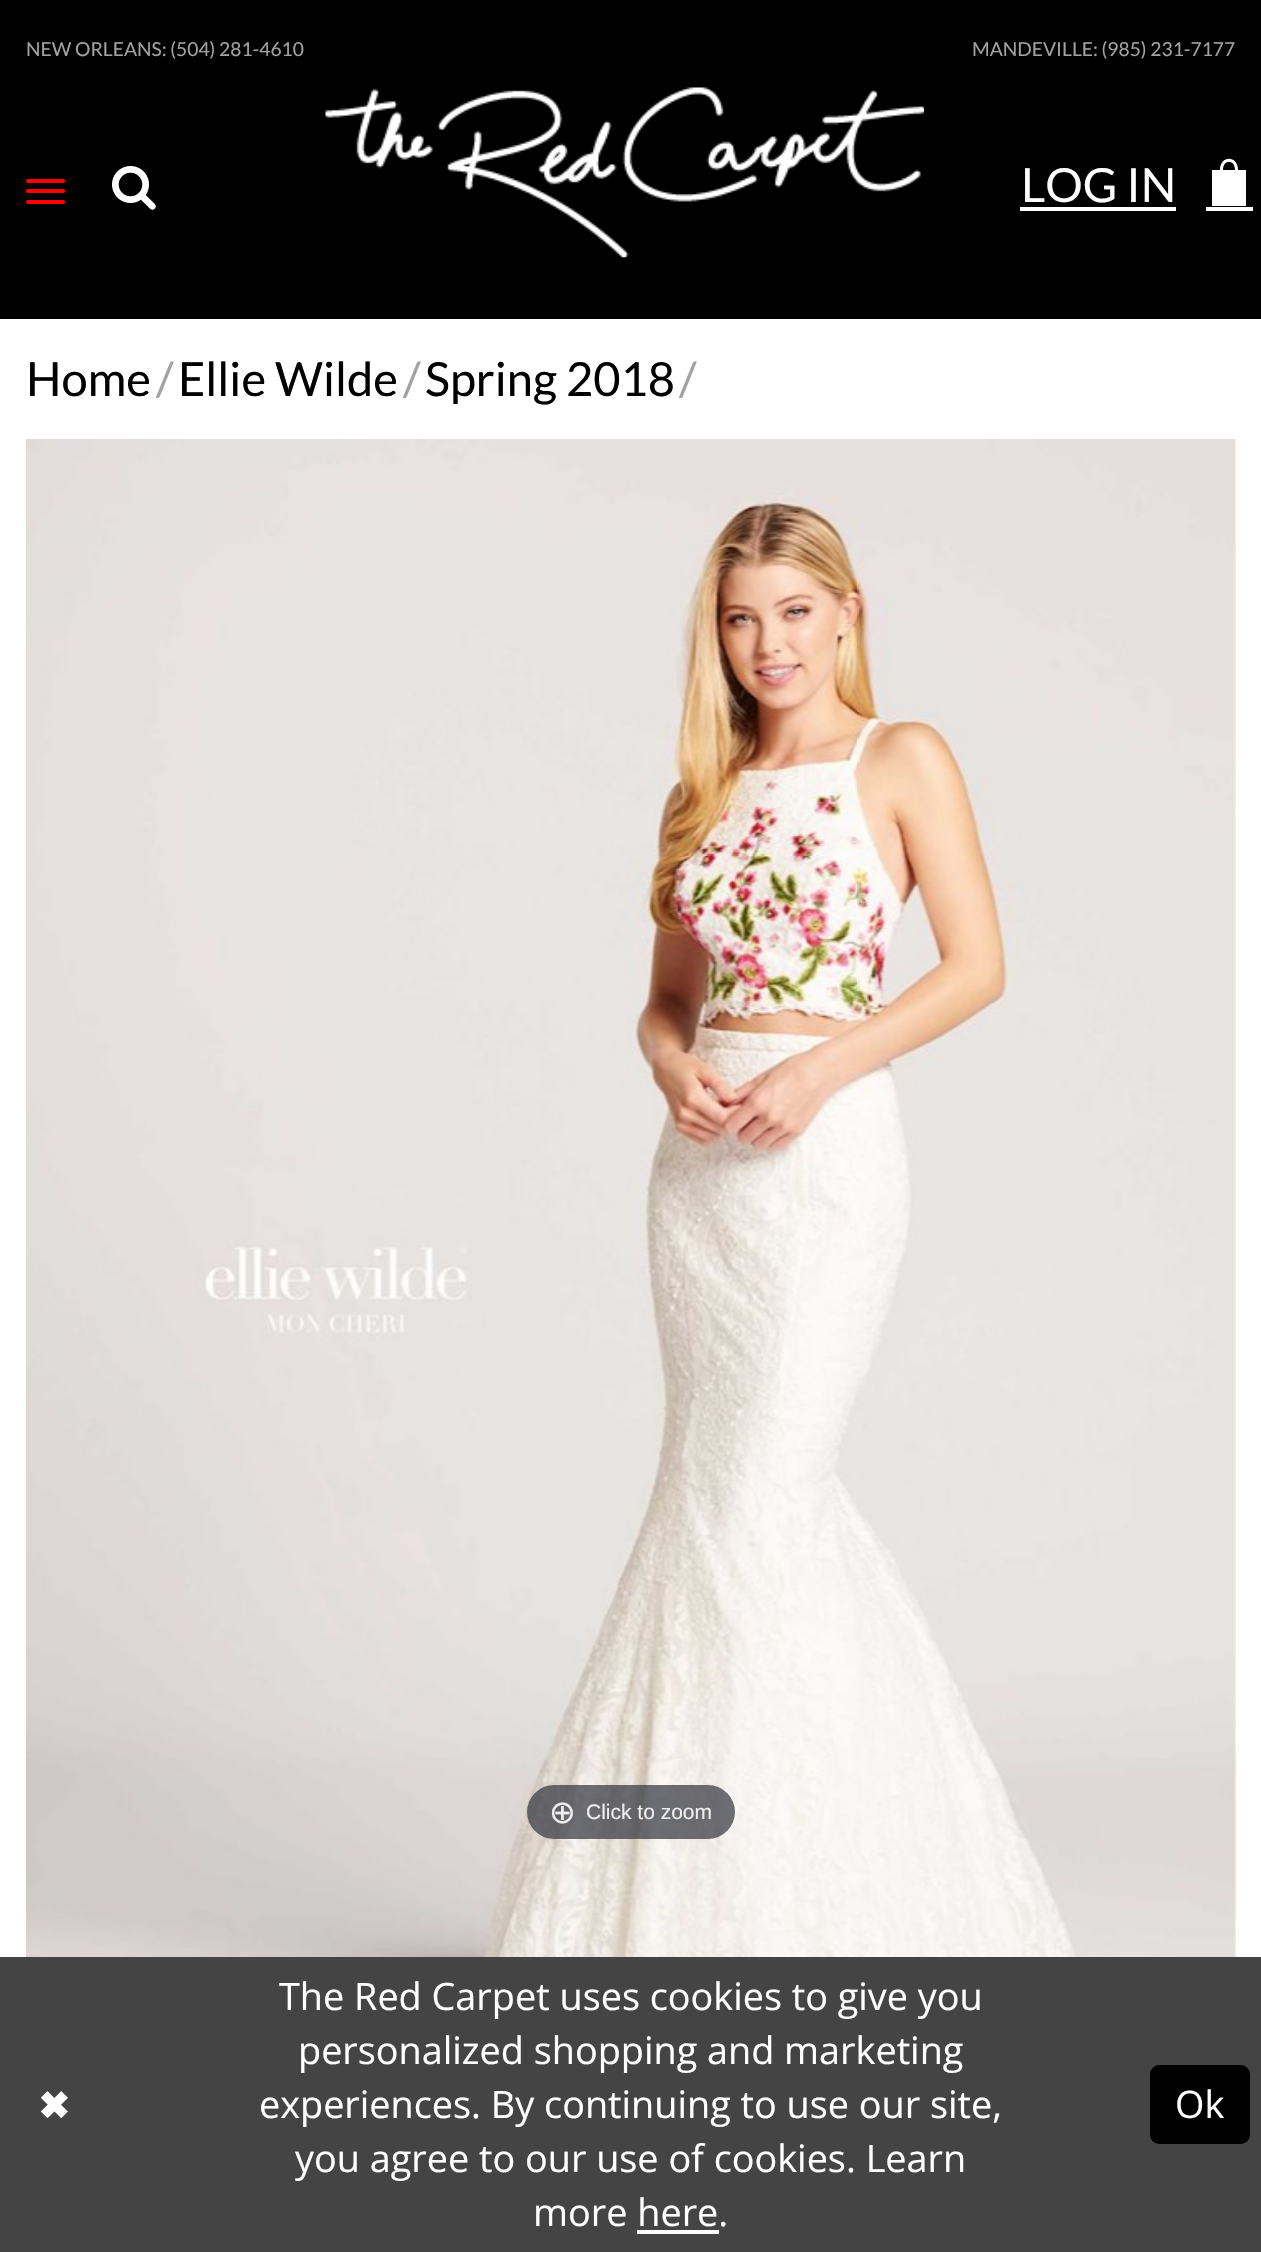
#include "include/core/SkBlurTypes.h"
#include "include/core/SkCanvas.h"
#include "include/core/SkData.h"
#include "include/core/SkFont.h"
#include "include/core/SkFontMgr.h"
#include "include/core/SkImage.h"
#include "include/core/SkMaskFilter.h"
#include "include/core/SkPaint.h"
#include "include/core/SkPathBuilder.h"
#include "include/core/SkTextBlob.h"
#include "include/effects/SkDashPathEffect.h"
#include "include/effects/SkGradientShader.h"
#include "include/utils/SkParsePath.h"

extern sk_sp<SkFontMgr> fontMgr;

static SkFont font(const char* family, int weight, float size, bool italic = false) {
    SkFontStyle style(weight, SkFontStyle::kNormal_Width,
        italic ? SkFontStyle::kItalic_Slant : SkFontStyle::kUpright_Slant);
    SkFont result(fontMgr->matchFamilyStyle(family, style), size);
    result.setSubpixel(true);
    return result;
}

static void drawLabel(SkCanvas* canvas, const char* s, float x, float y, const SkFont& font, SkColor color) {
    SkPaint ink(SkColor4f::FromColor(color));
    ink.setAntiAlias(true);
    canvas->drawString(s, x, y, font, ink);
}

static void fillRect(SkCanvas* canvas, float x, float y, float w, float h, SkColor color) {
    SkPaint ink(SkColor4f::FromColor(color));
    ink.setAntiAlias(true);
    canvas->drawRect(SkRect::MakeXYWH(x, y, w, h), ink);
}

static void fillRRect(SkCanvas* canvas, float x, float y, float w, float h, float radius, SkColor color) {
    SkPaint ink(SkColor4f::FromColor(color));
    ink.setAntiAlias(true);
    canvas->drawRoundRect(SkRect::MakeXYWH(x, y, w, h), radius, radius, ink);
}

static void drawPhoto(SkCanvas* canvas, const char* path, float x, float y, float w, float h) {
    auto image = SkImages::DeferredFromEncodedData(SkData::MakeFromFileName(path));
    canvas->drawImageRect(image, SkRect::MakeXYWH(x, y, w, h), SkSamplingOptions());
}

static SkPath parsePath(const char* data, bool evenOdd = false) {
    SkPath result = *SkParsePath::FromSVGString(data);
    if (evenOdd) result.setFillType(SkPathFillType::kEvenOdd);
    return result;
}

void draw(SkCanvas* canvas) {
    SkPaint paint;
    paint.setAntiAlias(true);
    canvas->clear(0xFFFFFFFF);
    fillRect(canvas, 0, 0, 1261, 319, 0xFF000000);
    SkFont font1 = font("Lato", 400, 19.25f);
    drawLabel(canvas, "NEW ORLEANS: (504) 281-4610", 26, 56, font1, 0xFFA2A2A2);
    drawLabel(canvas, "MANDEVILLE: (985) 231-7177", 972, 56, font1, 0xFFA2A2A2);
    drawPhoto(canvas, "assets/img1.png", 325, 87, 599, 171);
    fillRRect(canvas, 26, 179, 39, 4, 2, 0xFFFF0000);
    fillRRect(canvas, 26, 189, 39, 4, 2, 0xFFFF0000);
    fillRRect(canvas, 26, 200, 39, 4, 2, 0xFFFF0000);
    drawPhoto(canvas, "assets/img2.png", 112, 166, 44, 44);
    SkFont font2 = font("Lato", 400, 47);
    drawLabel(canvas, "LOG IN", 1021, 202, font2, 0xFFFFFFFF);
    fillRect(canvas, 1020, 207, 156, 4, 0xFFFFFFFF);
    paint.setColor(0xFFFFFFFF);
    canvas->drawPath(parsePath("M1238 170C1238 155 1220 155 1220 170H1212V206H1246V170ZM1223 170C1223 159 1235 159 1235 170Z"), paint);
    fillRect(canvas, 1206, 207, 47, 4, 0xFFFFFFFF);
    drawLabel(canvas, "Home", 26, 396, font2, 0xFF000000);
    drawLabel(canvas, "/", 156, 396, font2, 0xFFA2A2A2);
    drawLabel(canvas, "Ellie Wilde", 178, 396, font2, 0xFF000000);
    drawLabel(canvas, "/", 403, 396, font2, 0xFFA2A2A2);
    drawLabel(canvas, "Spring 2018", 425, 396, font2, 0xFF000000);
    drawLabel(canvas, "/", 679, 396, font2, 0xFFA2A2A2);
    drawPhoto(canvas, "assets/img3.png", 26, 439, 1210, 1518);
    fillRRect(canvas, 527, 1785, 208, 54, 27, 0xB331333D);
    SkFont font3 = font("DejaVu Sans", 400, 32);
    drawLabel(canvas, "⊕", 549, 1823, font3, 0xFFEEEEEE);
    SkFont font4 = font("Liberation Sans", 400, 21);
    drawLabel(canvas, "Click to zoom", 586, 1819, font4, 0xFFEEEEEE);
    fillRect(canvas, 0, 1957, 1261, 295, 0xFF444444);
    SkFont font5 = font("DejaVu Sans", 700, 37.8f);
    drawLabel(canvas, "✖", 38, 2119, font5, 0xFFFFFFFF);
    SkFont font6 = font("Open Sans", 400, 37.8f);
    drawLabel(canvas, "The Red Carpet uses cookies to give you", 279, 2010, font6, 0xFFFFFFFF);
    drawLabel(canvas, "personalized shopping and marketing", 298, 2064, font6, 0xFFFFFFFF);
    drawLabel(canvas, "experiences. By continuing to use our site,", 259, 2118, font6, 0xFFFFFFFF);
    drawLabel(canvas, "you agree to our use of cookies. Learn", 295, 2172, font6, 0xFFFFFFFF);
    drawLabel(canvas, "more here.", 533, 2226, font6, 0xFFFFFFFF);
    fillRect(canvas, 637, 2230, 82, 4, 0xFFFFFFFF);
    fillRRect(canvas, 1150, 2065, 100, 79, 9, 0xFF000000);
    drawLabel(canvas, "Ok", 1175, 2118, font6, 0xFFFFFFFF);
}
